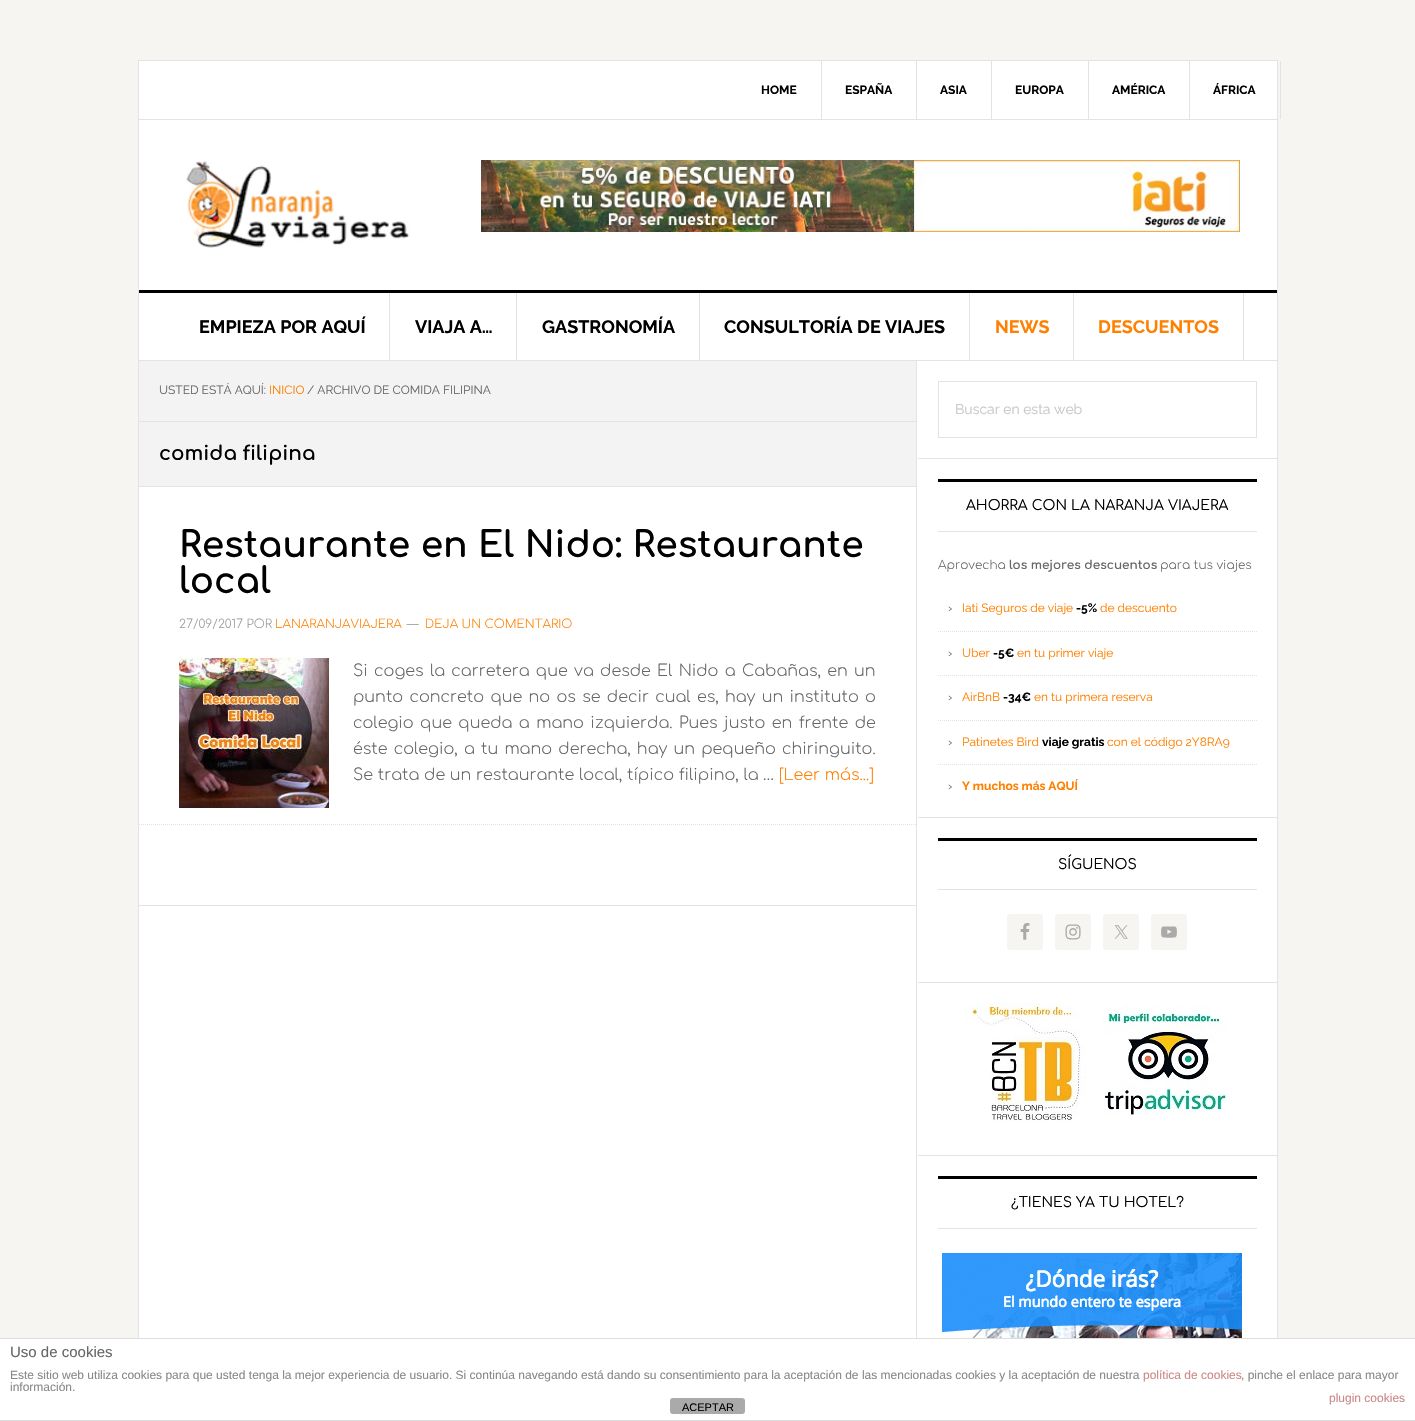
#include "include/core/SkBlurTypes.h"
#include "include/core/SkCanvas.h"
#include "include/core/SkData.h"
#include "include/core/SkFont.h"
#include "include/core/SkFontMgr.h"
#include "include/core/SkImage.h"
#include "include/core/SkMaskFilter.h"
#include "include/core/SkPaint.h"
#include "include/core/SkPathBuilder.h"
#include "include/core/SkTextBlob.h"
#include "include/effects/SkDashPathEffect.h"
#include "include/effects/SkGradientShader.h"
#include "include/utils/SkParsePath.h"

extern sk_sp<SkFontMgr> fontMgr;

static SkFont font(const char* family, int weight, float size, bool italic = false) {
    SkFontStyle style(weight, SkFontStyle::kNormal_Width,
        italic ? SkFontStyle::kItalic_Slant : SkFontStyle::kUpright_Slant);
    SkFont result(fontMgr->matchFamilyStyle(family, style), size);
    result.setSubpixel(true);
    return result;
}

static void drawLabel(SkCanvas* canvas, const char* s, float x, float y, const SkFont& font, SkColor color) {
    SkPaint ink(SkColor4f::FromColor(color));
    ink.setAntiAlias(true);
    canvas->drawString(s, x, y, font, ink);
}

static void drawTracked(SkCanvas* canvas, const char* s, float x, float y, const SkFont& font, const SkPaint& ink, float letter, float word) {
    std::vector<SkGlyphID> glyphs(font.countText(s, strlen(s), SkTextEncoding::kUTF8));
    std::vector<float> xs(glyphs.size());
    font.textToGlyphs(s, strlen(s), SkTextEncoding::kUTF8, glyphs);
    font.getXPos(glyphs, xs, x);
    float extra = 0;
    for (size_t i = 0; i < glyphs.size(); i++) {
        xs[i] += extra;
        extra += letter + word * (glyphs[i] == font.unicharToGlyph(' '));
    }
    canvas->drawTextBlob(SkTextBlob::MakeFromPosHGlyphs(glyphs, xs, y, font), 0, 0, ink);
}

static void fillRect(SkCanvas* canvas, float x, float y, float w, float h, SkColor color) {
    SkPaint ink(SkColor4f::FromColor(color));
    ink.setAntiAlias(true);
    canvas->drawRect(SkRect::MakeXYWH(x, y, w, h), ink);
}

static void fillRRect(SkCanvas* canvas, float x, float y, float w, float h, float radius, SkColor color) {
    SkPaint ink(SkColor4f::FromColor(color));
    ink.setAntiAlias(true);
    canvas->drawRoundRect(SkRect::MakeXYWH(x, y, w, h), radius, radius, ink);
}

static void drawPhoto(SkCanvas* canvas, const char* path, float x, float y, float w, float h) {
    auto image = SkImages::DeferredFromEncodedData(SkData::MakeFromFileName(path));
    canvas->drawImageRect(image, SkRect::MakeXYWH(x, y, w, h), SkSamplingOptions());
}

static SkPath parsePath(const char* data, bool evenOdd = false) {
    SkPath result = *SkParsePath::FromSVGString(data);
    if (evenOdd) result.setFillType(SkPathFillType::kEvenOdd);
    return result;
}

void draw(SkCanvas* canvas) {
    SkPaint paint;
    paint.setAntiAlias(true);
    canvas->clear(0xFFF6F5F2);
    fillRect(canvas, 139, 61, 1138, 1277, 0xFFFFFFFF);
    paint.setStroke(true);
    paint.setStrokeWidth(1);
    paint.setColor(0xFFE3E3E3);
    canvas->drawRect(SkRect::MakeXYWH(138.5f, 60.5f, 1139, 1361), paint);
    fillRect(canvas, 139, 119, 1138, 1, 0xFFE3E3E3);
    fillRect(canvas, 821, 61, 1, 58, 0xFFE3E3E3);
    SkFont font1 = font("Raleway", 700, 12);
    drawLabel(canvas, "HOME", 761, 94, font1, 0xFF000000);
    fillRect(canvas, 916, 61, 1, 58, 0xFFE3E3E3);
    drawLabel(canvas, "ESPAÑA", 845, 94, font1, 0xFF000000);
    fillRect(canvas, 991, 61, 1, 58, 0xFFE3E3E3);
    drawLabel(canvas, "ASIA", 940, 94, font1, 0xFF000000);
    fillRect(canvas, 1088, 61, 1, 58, 0xFFE3E3E3);
    drawLabel(canvas, "EUROPA", 1015, 94, font1, 0xFF000000);
    fillRect(canvas, 1189, 61, 1, 58, 0xFFE3E3E3);
    drawLabel(canvas, "AMÉRICA", 1112, 94, font1, 0xFF000000);
    fillRect(canvas, 1280, 61, 1, 58, 0xFFE3E3E3);
    drawLabel(canvas, "ÁFRICA", 1213, 94, font1, 0xFF000000);
    fillRect(canvas, 139, 290, 1138, 3, 0xFF000000);
    drawPhoto(canvas, "assets/img1.png", 186, 161, 224, 87);
    drawPhoto(canvas, "assets/img2.png", 481, 160, 759, 72);
    fillRect(canvas, 139, 360, 1138, 1, 0xFFE3E3E3);
    fillRect(canvas, 389, 293, 1, 67, 0xFFE3E3E3);
    SkFont font2 = font("Raleway", 700, 18);
    drawLabel(canvas, "EMPIEZA POR AQUÍ", 199, 333, font2, 0xFF000000);
    fillRect(canvas, 516, 293, 1, 67, 0xFFE3E3E3);
    drawLabel(canvas, "VIAJA A…", 415, 333, font2, 0xFF000000);
    fillRect(canvas, 699, 293, 1, 67, 0xFFE3E3E3);
    drawLabel(canvas, "GASTRONOMÍA", 542, 333, font2, 0xFF000000);
    fillRect(canvas, 969, 293, 1, 67, 0xFFE3E3E3);
    drawLabel(canvas, "CONSULTORÍA DE VIAJES", 724, 333, font2, 0xFF000000);
    fillRect(canvas, 1073, 293, 1, 67, 0xFFE3E3E3);
    drawLabel(canvas, "NEWS", 995, 333, font2, 0xFFFF8000);
    fillRect(canvas, 1243, 293, 1, 67, 0xFFE3E3E3);
    drawLabel(canvas, "DESCUENTOS", 1098, 333, font2, 0xFFFF8000);
    fillRect(canvas, 916, 361, 1, 977, 0xFFE3E3E3);
    fillRect(canvas, 139, 361, 777, 60, 0xFFF3F3F3);
    fillRect(canvas, 139, 421, 777, 1, 0xFFE3E3E3);
    SkFont font3 = font("Raleway", 400, 12);
    drawLabel(canvas, "USTED ESTÁ AQUÍ:", 159, 394, font3, 0xFF666666);
    drawLabel(canvas, "INICIO", 269, 394, font3, 0xFFFF8000);
    drawLabel(canvas, "/ ARCHIVO DE COMIDA FILIPINA", 307, 394, font3, 0xFF666666);
    fillRect(canvas, 139, 422, 777, 64, 0xFFF3F3F3);
    fillRect(canvas, 139, 486, 777, 1, 0xFFE3E3E3);
    SkFont font4 = font("Comfortaa", 700, 20);
    drawLabel(canvas, "comida filipina", 159, 460, font4, 0xFF000000);
    fillRect(canvas, 139, 905, 777, 1, 0xFFE3E3E3);
    SkFont font5 = font("Comfortaa", 700, 36);
    drawLabel(canvas, "Restaurante en El Nido: Restaurante", 179, 557, font5, 0xFF000000);
    drawLabel(canvas, "local", 179, 593, font5, 0xFF000000);
    SkFont font6 = font("Comfortaa", 300, 12);
    drawLabel(canvas, "27/09/2017 POR", 179, 628, font6, 0xFF999999);
    drawLabel(canvas, "LANARANJAVIAJERA", 275, 628, font6, 0xFFFF8000);
    drawLabel(canvas, "—", 407, 628, font6, 0xFF999999);
    drawLabel(canvas, "DEJA UN COMENTARIO", 425, 628, font6, 0xFFFF8000);
    drawPhoto(canvas, "assets/img3.png", 179, 658, 150, 150);
    SkFont font7 = font("Comfortaa", 300, 16);
    paint.setStroke(false);
    paint.setColor(0xFF666666);
    drawTracked(canvas, "Si coges la carretera que va desde El Nido a Cabañas, en un", 353, 676, font7, paint, 0, 1.6f);
    drawTracked(canvas, "punto concreto que no os se decir cual es, hay un instituto o", 353, 702, font7, paint, 0, 1.6f);
    drawTracked(canvas, "colegio que queda a mano izquierda. Pues justo en frente de", 353, 728, font7, paint, 0, 1.75f);
    drawTracked(canvas, "éste colegio, a tu mano derecha, hay un pequeño chiringuito.", 353, 754, font7, paint, 0, 1.5f);
    drawLabel(canvas, "Se trata de un restaurante local, típico filipino, la …", 353, 780, font7, 0xFF666666);
    drawLabel(canvas, "[Leer más...]", 779, 780, font7, 0xFFFF8000);
    paint.setStroke(true);
    paint.setColor(0xFFE3E3E3);
    paint.setPathEffect(SkDashPathEffect::Make({{1, 1}}, 0));
    canvas->drawPath(parsePath("M139 824.5H916"), paint);
    paint.setPathEffect(nullptr);
    fillRect(canvas, 918, 458, 359, 1, 0xFFE3E3E3);
    canvas->drawRect(SkRect::MakeXYWH(938.5f, 381.5f, 318, 56), paint);
    SkFont font8 = font("Raleway", 400, 14);
    drawLabel(canvas, "Buscar en esta web", 955, 414, font8, 0xFFC8C8C8);
    fillRect(canvas, 918, 817, 359, 1, 0xFFE3E3E3);
    fillRect(canvas, 938, 479, 319, 3, 0xFF000000);
    fillRect(canvas, 938, 531, 319, 1, 0xFFE3E3E3);
    SkFont font9 = font("Comfortaa", 400, 14);
    drawLabel(canvas, "AHORRA CON LA NARANJA VIAJERA", 966, 510, font9, 0xFF000000);
    drawLabel(canvas, "Aprovecha", 938, 569, font6, 0xFF666666);
    SkFont font10 = font("Comfortaa", 700, 12);
    drawLabel(canvas, "los mejores descuentos", 1009, 569, font10, 0xFF666666);
    drawLabel(canvas, "para tus viajes", 1160, 569, font6, 0xFF666666);
    paint.setPathEffect(SkDashPathEffect::Make({{1, 1}}, 0));
    canvas->drawPath(parsePath("M938 631.5H1257"), paint);
    paint.setPathEffect(nullptr);
    drawLabel(canvas, "›", 948, 612, font3, 0xFF666666);
    drawLabel(canvas, "Iati Seguros de viaje", 962, 612, font3, 0xFFFF8000);
    drawLabel(canvas, "-5%", 1076, 612, font1, 0xFF000000);
    drawLabel(canvas, "de descuento", 1100, 612, font3, 0xFFFF8000);
    paint.setPathEffect(SkDashPathEffect::Make({{1, 1}}, 0));
    canvas->drawPath(parsePath("M938 675.5H1257"), paint);
    paint.setPathEffect(nullptr);
    drawLabel(canvas, "›", 948, 657, font3, 0xFF666666);
    drawLabel(canvas, "Uber", 962, 657, font3, 0xFFFF8000);
    drawLabel(canvas, "-5€", 993, 657, font1, 0xFF000000);
    drawLabel(canvas, "en tu primer viaje", 1017, 657, font3, 0xFFFF8000);
    paint.setPathEffect(SkDashPathEffect::Make({{1, 1}}, 0));
    canvas->drawPath(parsePath("M938 720.5H1257"), paint);
    paint.setPathEffect(nullptr);
    drawLabel(canvas, "›", 948, 701, font3, 0xFF666666);
    drawLabel(canvas, "AirBnB", 962, 701, font3, 0xFFFF8000);
    drawLabel(canvas, "-34€", 1003, 701, font1, 0xFF000000);
    drawLabel(canvas, "en tu primera reserva", 1034, 701, font3, 0xFFFF8000);
    paint.setPathEffect(SkDashPathEffect::Make({{1, 1}}, 0));
    canvas->drawPath(parsePath("M938 764.5H1257"), paint);
    paint.setPathEffect(nullptr);
    drawLabel(canvas, "›", 948, 746, font3, 0xFF666666);
    drawLabel(canvas, "Patinetes Bird", 962, 746, font3, 0xFFFF8000);
    drawLabel(canvas, "viaje gratis", 1042, 746, font1, 0xFF000000);
    drawLabel(canvas, "con el código 2Y8RA9", 1107, 746, font3, 0xFFFF8000);
    drawLabel(canvas, "›", 948, 790, font3, 0xFF666666);
    drawLabel(canvas, "Y muchos más AQUÍ", 962, 790, font1, 0xFFFF8000);
    fillRect(canvas, 918, 982, 359, 1, 0xFFE3E3E3);
    fillRect(canvas, 938, 838, 319, 3, 0xFF000000);
    fillRect(canvas, 938, 889, 319, 1, 0xFFE3E3E3);
    drawLabel(canvas, "SÍGUENOS", 1058, 869, font9, 0xFF000000);
    fillRRect(canvas, 1007, 914, 36, 36, 3, 0xFFF6F5F2);
    drawPhoto(canvas, "assets/img4.png", 1020, 923, 10, 17);
    fillRRect(canvas, 1055, 914, 36, 36, 3, 0xFFF6F5F2);
    drawPhoto(canvas, "assets/img5.png", 1065, 924, 16, 16);
    fillRRect(canvas, 1103, 914, 36, 36, 3, 0xFFF6F5F2);
    drawPhoto(canvas, "assets/img6.png", 1114, 925, 14, 14);
    fillRRect(canvas, 1151, 914, 36, 36, 3, 0xFFF6F5F2);
    drawPhoto(canvas, "assets/img7.png", 1161, 926, 16, 12);
    fillRect(canvas, 918, 1155, 359, 1, 0xFFE3E3E3);
    drawPhoto(canvas, "assets/img8.png", 966, 1003, 120, 120);
    drawPhoto(canvas, "assets/img9.png", 1103, 1003, 125, 112);
    fillRect(canvas, 938, 1176, 319, 3, 0xFF000000);
    fillRect(canvas, 938, 1228, 319, 1, 0xFFE3E3E3);
    drawLabel(canvas, "¿TIENES YA TU HOTEL?", 1011, 1207, font9, 0xFF000000);
    drawPhoto(canvas, "assets/img10.png", 942, 1253, 300, 85);
    fillRect(canvas, 0, 1339, 1415, 81, 0xFFFFFFFF);
    fillRect(canvas, 0, 1338, 1415, 1, 0xFFDDDDDD);
    fillRect(canvas, 0, 1420, 1415, 1, 0xFFDDDDDD);
    SkFont font11 = font("Liberation Sans", 400, 15);
    drawLabel(canvas, "Uso de cookies", 10, 1357, font11, 0xFF666666);
    SkFont font12 = font("Liberation Sans", 400, 12);
    drawLabel(canvas, "Este sitio web utiliza cookies para que usted tenga la mejor experiencia de usuario. Si continúa navegando está dando su consentimiento para la aceptación de las mencionadas cookies y la aceptación de nuestra", 10, 1379, font12, 0xFF888888);
    drawLabel(canvas, "política de cookies", 1143, 1379, font12, 0xFFCC8888);
    drawLabel(canvas, ", pinche el enlace para mayor", 1241, 1379, font12, 0xFF888888);
    drawLabel(canvas, "información.", 10, 1391, font12, 0xFF888888);
    drawLabel(canvas, "plugin cookies", 1329, 1402, font12, 0xFFCC8888);
    fillRRect(canvas, 670, 1398, 75, 16, 3, 0xFFAAAAAA);
    SkFont font13 = font("Liberation Sans", 400, 11);
    drawLabel(canvas, "ACEPTAR", 682, 1411, font13, 0xFF000000);
}
